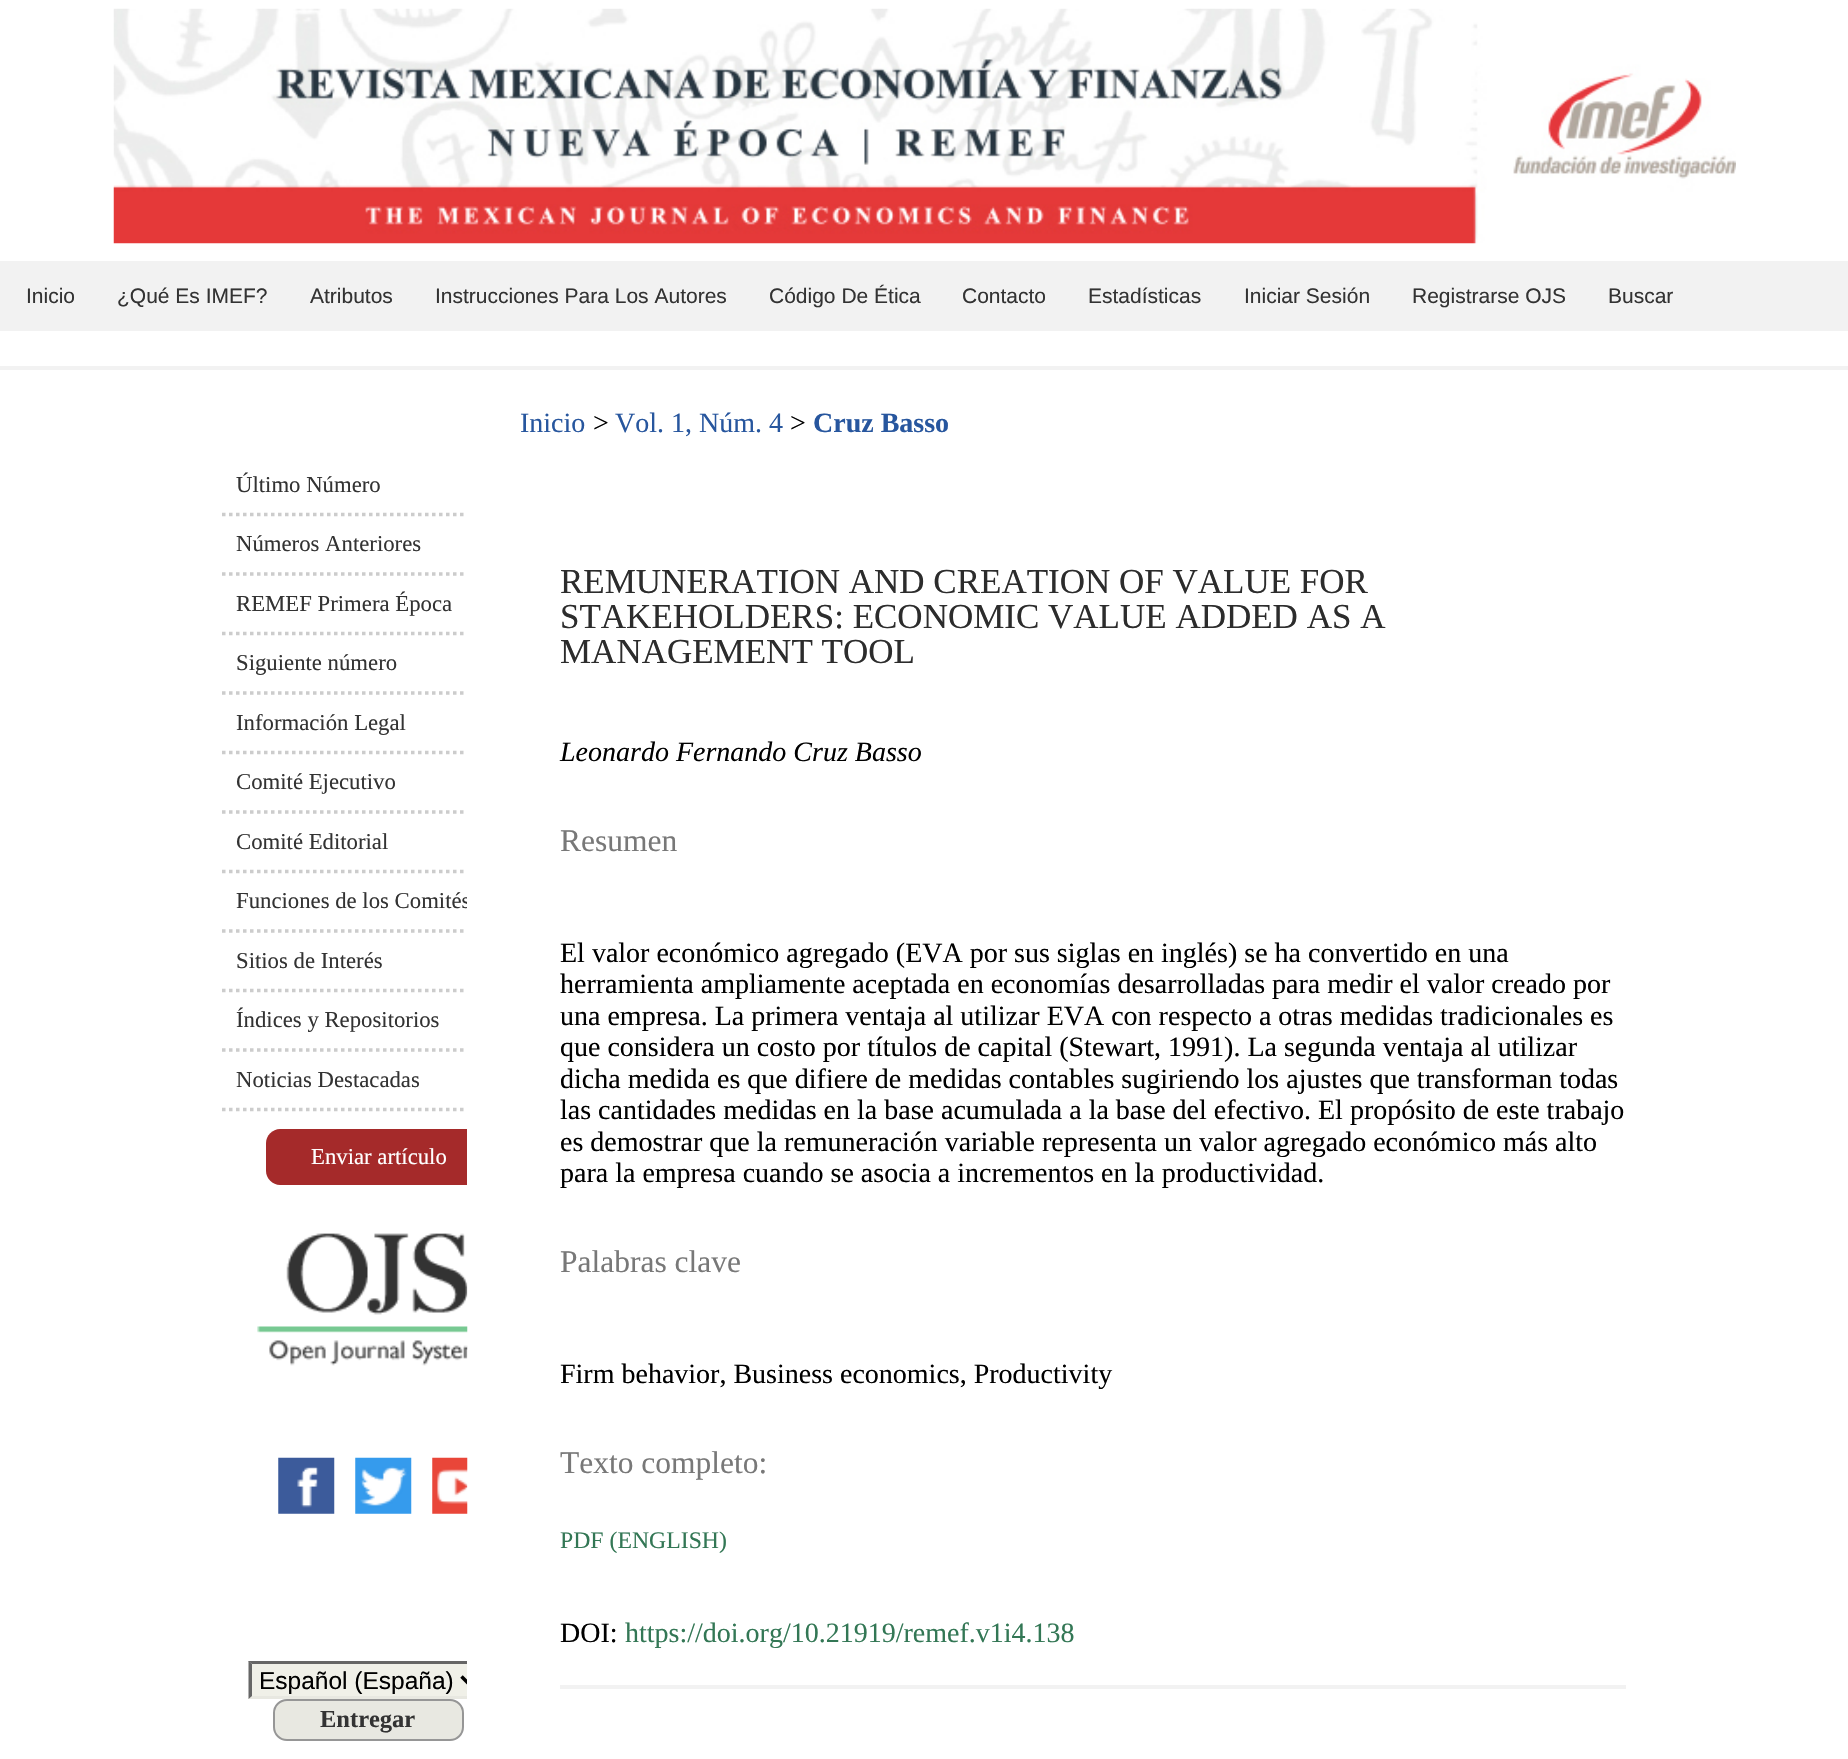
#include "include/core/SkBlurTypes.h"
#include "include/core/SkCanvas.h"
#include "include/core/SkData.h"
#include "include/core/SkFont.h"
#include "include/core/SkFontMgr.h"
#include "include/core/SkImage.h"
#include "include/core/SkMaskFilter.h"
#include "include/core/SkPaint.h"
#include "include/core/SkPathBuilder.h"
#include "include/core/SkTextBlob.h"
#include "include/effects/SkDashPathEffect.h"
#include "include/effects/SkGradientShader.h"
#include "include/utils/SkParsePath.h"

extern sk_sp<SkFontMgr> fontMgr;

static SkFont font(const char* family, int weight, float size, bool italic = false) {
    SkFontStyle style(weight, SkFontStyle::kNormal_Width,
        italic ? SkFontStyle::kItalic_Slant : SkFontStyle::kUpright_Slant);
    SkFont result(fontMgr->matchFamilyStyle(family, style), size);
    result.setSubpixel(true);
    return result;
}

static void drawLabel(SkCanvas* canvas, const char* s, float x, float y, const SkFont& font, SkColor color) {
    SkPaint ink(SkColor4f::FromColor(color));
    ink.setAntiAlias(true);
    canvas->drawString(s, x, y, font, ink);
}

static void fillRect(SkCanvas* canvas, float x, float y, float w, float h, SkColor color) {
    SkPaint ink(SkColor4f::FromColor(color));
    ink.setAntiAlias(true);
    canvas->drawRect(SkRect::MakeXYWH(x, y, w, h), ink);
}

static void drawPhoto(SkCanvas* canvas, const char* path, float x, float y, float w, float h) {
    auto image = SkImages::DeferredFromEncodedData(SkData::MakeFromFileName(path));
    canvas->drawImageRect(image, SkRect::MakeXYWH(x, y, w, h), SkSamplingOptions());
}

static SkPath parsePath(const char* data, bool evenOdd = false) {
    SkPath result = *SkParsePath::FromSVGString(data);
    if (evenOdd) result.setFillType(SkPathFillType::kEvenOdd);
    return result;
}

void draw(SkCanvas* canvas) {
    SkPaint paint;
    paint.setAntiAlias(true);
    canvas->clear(0xFFFFFFFF);
    drawPhoto(canvas, "assets/img1.png", 113, 8, 1623, 236);
    fillRect(canvas, 0, 261, 1848, 70, 0xFFF2F2F2);
    SkFont font1 = font("Liberation Sans", 400, 21);
    drawLabel(canvas, "Inicio", 26, 303, font1, 0xFF333333);
    drawLabel(canvas, "¿Qué Es IMEF?", 117, 303, font1, 0xFF333333);
    drawLabel(canvas, "Atributos", 310, 303, font1, 0xFF333333);
    drawLabel(canvas, "Instrucciones Para Los Autores", 435, 303, font1, 0xFF333333);
    drawLabel(canvas, "Código De Ética", 769, 303, font1, 0xFF333333);
    drawLabel(canvas, "Contacto", 962, 303, font1, 0xFF333333);
    drawLabel(canvas, "Estadísticas", 1088, 303, font1, 0xFF333333);
    drawLabel(canvas, "Iniciar Sesión", 1244, 303, font1, 0xFF333333);
    drawLabel(canvas, "Registrarse OJS", 1412, 303, font1, 0xFF333333);
    drawLabel(canvas, "Buscar", 1608, 303, font1, 0xFF333333);
    canvas->save();
    canvas->clipRect(SkRect::MakeXYWH(222, 418, 245, 1243));
    paint.setStroke(true);
    paint.setStrokeWidth(3.5f);
    paint.setColor(0xFFCCCCCC);
    paint.setPathEffect(SkDashPathEffect::Make({{3.5f, 3.5f}}, 0));
    canvas->drawPath(parsePath("M222 514.5H537"), paint);
    paint.setPathEffect(nullptr);
    canvas->restore();
    SkFont font2 = font("Liberation Serif", 400, 22.75f);
    drawLabel(canvas, "Último Número", 236, 492, font2, 0xFF333333);
    canvas->save();
    canvas->clipRect(SkRect::MakeXYWH(222, 418, 245, 1243));
    paint.setPathEffect(SkDashPathEffect::Make({{3.5f, 3.5f}}, 0));
    canvas->drawPath(parsePath("M222 574H537"), paint);
    paint.setPathEffect(nullptr);
    canvas->restore();
    drawLabel(canvas, "Números Anteriores", 236, 551, font2, 0xFF333333);
    canvas->save();
    canvas->clipRect(SkRect::MakeXYWH(222, 418, 245, 1243));
    paint.setPathEffect(SkDashPathEffect::Make({{3.5f, 3.5f}}, 0));
    canvas->drawPath(parsePath("M222 633.5H537"), paint);
    paint.setPathEffect(nullptr);
    canvas->restore();
    drawLabel(canvas, "REMEF Primera Época", 236, 611, font2, 0xFF333333);
    canvas->save();
    canvas->clipRect(SkRect::MakeXYWH(222, 418, 245, 1243));
    paint.setPathEffect(SkDashPathEffect::Make({{3.5f, 3.5f}}, 0));
    canvas->drawPath(parsePath("M222 693H537"), paint);
    paint.setPathEffect(nullptr);
    canvas->restore();
    drawLabel(canvas, "Siguiente número", 236, 670, font2, 0xFF333333);
    canvas->save();
    canvas->clipRect(SkRect::MakeXYWH(222, 418, 245, 1243));
    paint.setPathEffect(SkDashPathEffect::Make({{3.5f, 3.5f}}, 0));
    canvas->drawPath(parsePath("M222 752.5H537"), paint);
    paint.setPathEffect(nullptr);
    canvas->restore();
    drawLabel(canvas, "Información Legal", 236, 730, font2, 0xFF333333);
    canvas->save();
    canvas->clipRect(SkRect::MakeXYWH(222, 418, 245, 1243));
    paint.setPathEffect(SkDashPathEffect::Make({{3.5f, 3.5f}}, 0));
    canvas->drawPath(parsePath("M222 812H537"), paint);
    paint.setPathEffect(nullptr);
    canvas->restore();
    drawLabel(canvas, "Comité Ejecutivo", 236, 789, font2, 0xFF333333);
    canvas->save();
    canvas->clipRect(SkRect::MakeXYWH(222, 418, 245, 1243));
    paint.setPathEffect(SkDashPathEffect::Make({{3.5f, 3.5f}}, 0));
    canvas->drawPath(parsePath("M222 871.5H537"), paint);
    paint.setPathEffect(nullptr);
    canvas->restore();
    drawLabel(canvas, "Comité Editorial", 236, 849, font2, 0xFF333333);
    canvas->save();
    canvas->clipRect(SkRect::MakeXYWH(222, 418, 245, 1243));
    paint.setPathEffect(SkDashPathEffect::Make({{3.5f, 3.5f}}, 0));
    canvas->drawPath(parsePath("M222 931H537"), paint);
    paint.setPathEffect(nullptr);
    drawLabel(canvas, "Funciones de los Comités", 236, 908, font2, 0xFF333333);
    paint.setPathEffect(SkDashPathEffect::Make({{3.5f, 3.5f}}, 0));
    canvas->drawPath(parsePath("M222 990.5H537"), paint);
    paint.setPathEffect(nullptr);
    canvas->restore();
    drawLabel(canvas, "Sitios de Interés", 236, 968, font2, 0xFF333333);
    canvas->save();
    canvas->clipRect(SkRect::MakeXYWH(222, 418, 245, 1243));
    paint.setPathEffect(SkDashPathEffect::Make({{3.5f, 3.5f}}, 0));
    canvas->drawPath(parsePath("M222 1050H537"), paint);
    paint.setPathEffect(nullptr);
    canvas->restore();
    drawLabel(canvas, "Índices y Repositorios", 236, 1027, font2, 0xFF333333);
    canvas->save();
    canvas->clipRect(SkRect::MakeXYWH(222, 418, 245, 1243));
    paint.setPathEffect(SkDashPathEffect::Make({{3.5f, 3.5f}}, 0));
    canvas->drawPath(parsePath("M222 1109.5H537"), paint);
    paint.setPathEffect(nullptr);
    canvas->restore();
    drawLabel(canvas, "Noticias Destacadas", 236, 1087, font2, 0xFF333333);
    paint.setStroke(false);
    paint.setColor(0xFFA52A2A);
    canvas->drawPath(parsePath("M280 1129H467V1185H280C272.5 1185 266 1178.5 266 1171V1143C266 1135.5 272.5 1129 280 1129Z"), paint);
    drawLabel(canvas, "Enviar artículo", 311, 1164, font2, 0xFFFFFFFF);
    drawPhoto(canvas, "assets/img2.png", 257, 1233, 211, 133);
    drawPhoto(canvas, "assets/img3.png", 278, 1457, 57, 57);
    drawPhoto(canvas, "assets/img4.png", 355, 1457, 57, 57);
    drawPhoto(canvas, "assets/img5.png", 432, 1457, 36, 57);
    fillRect(canvas, 249, 1661, 218, 38, 0xFFF0F0E8);
    canvas->save();
    canvas->clipRect(SkRect::MakeXYWH(222, 331, 245, 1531));
    paint.setColor(0xFF666666);
    canvas->drawPath(parsePath("M248 1661H486L483 1664H252Z"), paint);
    paint.setColor(0xFFE8E8E1);
    canvas->drawPath(parsePath("M486 1699H248L252 1696H483Z"), paint);
    canvas->restore();
    paint.setColor(0xFF666666);
    canvas->drawPath(parsePath("M248.5 1699V1661L252 1664V1696Z"), paint);
    canvas->save();
    canvas->clipRect(SkRect::MakeXYWH(222, 331, 245, 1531));
    paint.setStroke(true);
    paint.setColor(0xFF000000);
    canvas->drawPath(parsePath("M461.5 1676.5L468.5 1683.5L475.5 1676.5"), paint);
    canvas->restore();
    SkFont font3 = font("Liberation Sans", 400, 24.5f);
    drawLabel(canvas, "Español (España)", 259, 1689, font3, 0xFF000000);
    paint.setStroke(false);
    paint.setColor(0xFFE8E8E1);
    canvas->drawRoundRect(SkRect::MakeXYWH(274, 1700, 189, 40), 13, 13, paint);
    paint.setStroke(true);
    paint.setStrokeWidth(2);
    paint.setColor(0xFF969696);
    canvas->drawRoundRect(SkRect::MakeXYWH(274, 1700, 189, 40), 13, 13, paint);
    SkFont font4 = font("Liberation Serif", 700, 24.5f);
    drawLabel(canvas, "Entregar", 320, 1727, font4, 0xFF333333);
    SkFont font5 = font("Liberation Serif", 400, 28);
    drawLabel(canvas, "Inicio", 520, 432, font5, 0xFF27569E);
    drawLabel(canvas, ">", 593, 432, font5, 0xFF000000);
    drawLabel(canvas, "Vol. 1, Núm. 4", 615, 432, font5, 0xFF27569E);
    drawLabel(canvas, ">", 790, 432, font5, 0xFF000000);
    SkFont font6 = font("Liberation Serif", 700, 28);
    drawLabel(canvas, "Cruz Basso", 813, 432, font6, 0xFF27569E);
    SkFont font7 = font("Liberation Serif", 400, 35);
    drawLabel(canvas, "REMUNERATION AND CREATION OF VALUE FOR", 560, 593, font7, 0xFF2C2C2C);
    drawLabel(canvas, "STAKEHOLDERS: ECONOMIC VALUE ADDED AS A", 560, 628, font7, 0xFF2C2C2C);
    drawLabel(canvas, "MANAGEMENT TOOL", 560, 663, font7, 0xFF2C2C2C);
    SkFont font8 = font("Liberation Serif", 400, 28, true);
    drawLabel(canvas, "Leonardo Fernando Cruz Basso", 560, 761, font8, 0xFF000000);
    SkFont font9 = font("Liberation Serif", 400, 31.5f);
    drawLabel(canvas, "Resumen", 560, 851, font9, 0xFF787878);
    drawLabel(canvas, "El valor económico agregado (EVA por sus siglas en inglés) se ha convertido en una", 560, 962, font5, 0xFF000000);
    drawLabel(canvas, "herramienta ampliamente aceptada en economías desarrolladas para medir el valor creado por", 560, 993, font5, 0xFF000000);
    drawLabel(canvas, "una empresa. La primera ventaja al utilizar EVA con respecto a otras medidas tradicionales es", 560, 1025, font5, 0xFF000000);
    drawLabel(canvas, "que considera un costo por títulos de capital (Stewart, 1991). La segunda ventaja al utilizar", 560, 1056, font5, 0xFF000000);
    drawLabel(canvas, "dicha medida es que difiere de medidas contables sugiriendo los ajustes que transforman todas", 560, 1088, font5, 0xFF000000);
    drawLabel(canvas, "las cantidades medidas en la base acumulada a la base del efectivo. El propósito de este trabajo", 560, 1119, font5, 0xFF000000);
    drawLabel(canvas, "es demostrar que la remuneración variable representa un valor agregado económico más alto", 560, 1151, font5, 0xFF000000);
    drawLabel(canvas, "para la empresa cuando se asocia a incrementos en la productividad.", 560, 1182, font5, 0xFF000000);
    drawLabel(canvas, "Palabras clave", 560, 1272, font9, 0xFF787878);
    drawLabel(canvas, "Firm behavior, Business economics, Productivity", 560, 1383, font5, 0xFF000000);
    drawLabel(canvas, "Texto completo:", 560, 1473, font9, 0xFF787878);
    SkFont font10 = font("Liberation Serif", 400, 23.75f);
    drawLabel(canvas, "PDF (ENGLISH)", 560, 1548, font10, 0xFF337755);
    drawLabel(canvas, "DOI:", 560, 1642, font5, 0xFF000000);
    drawLabel(canvas, "https://doi.org/10.21919/remef.v1i4.138", 625, 1642, font5, 0xFF337755);
    fillRect(canvas, 560, 1685, 1066, 4, 0xFFF2F2F2);
    fillRect(canvas, 0, 366, 1848, 4, 0xFFF2F2F2);
}
